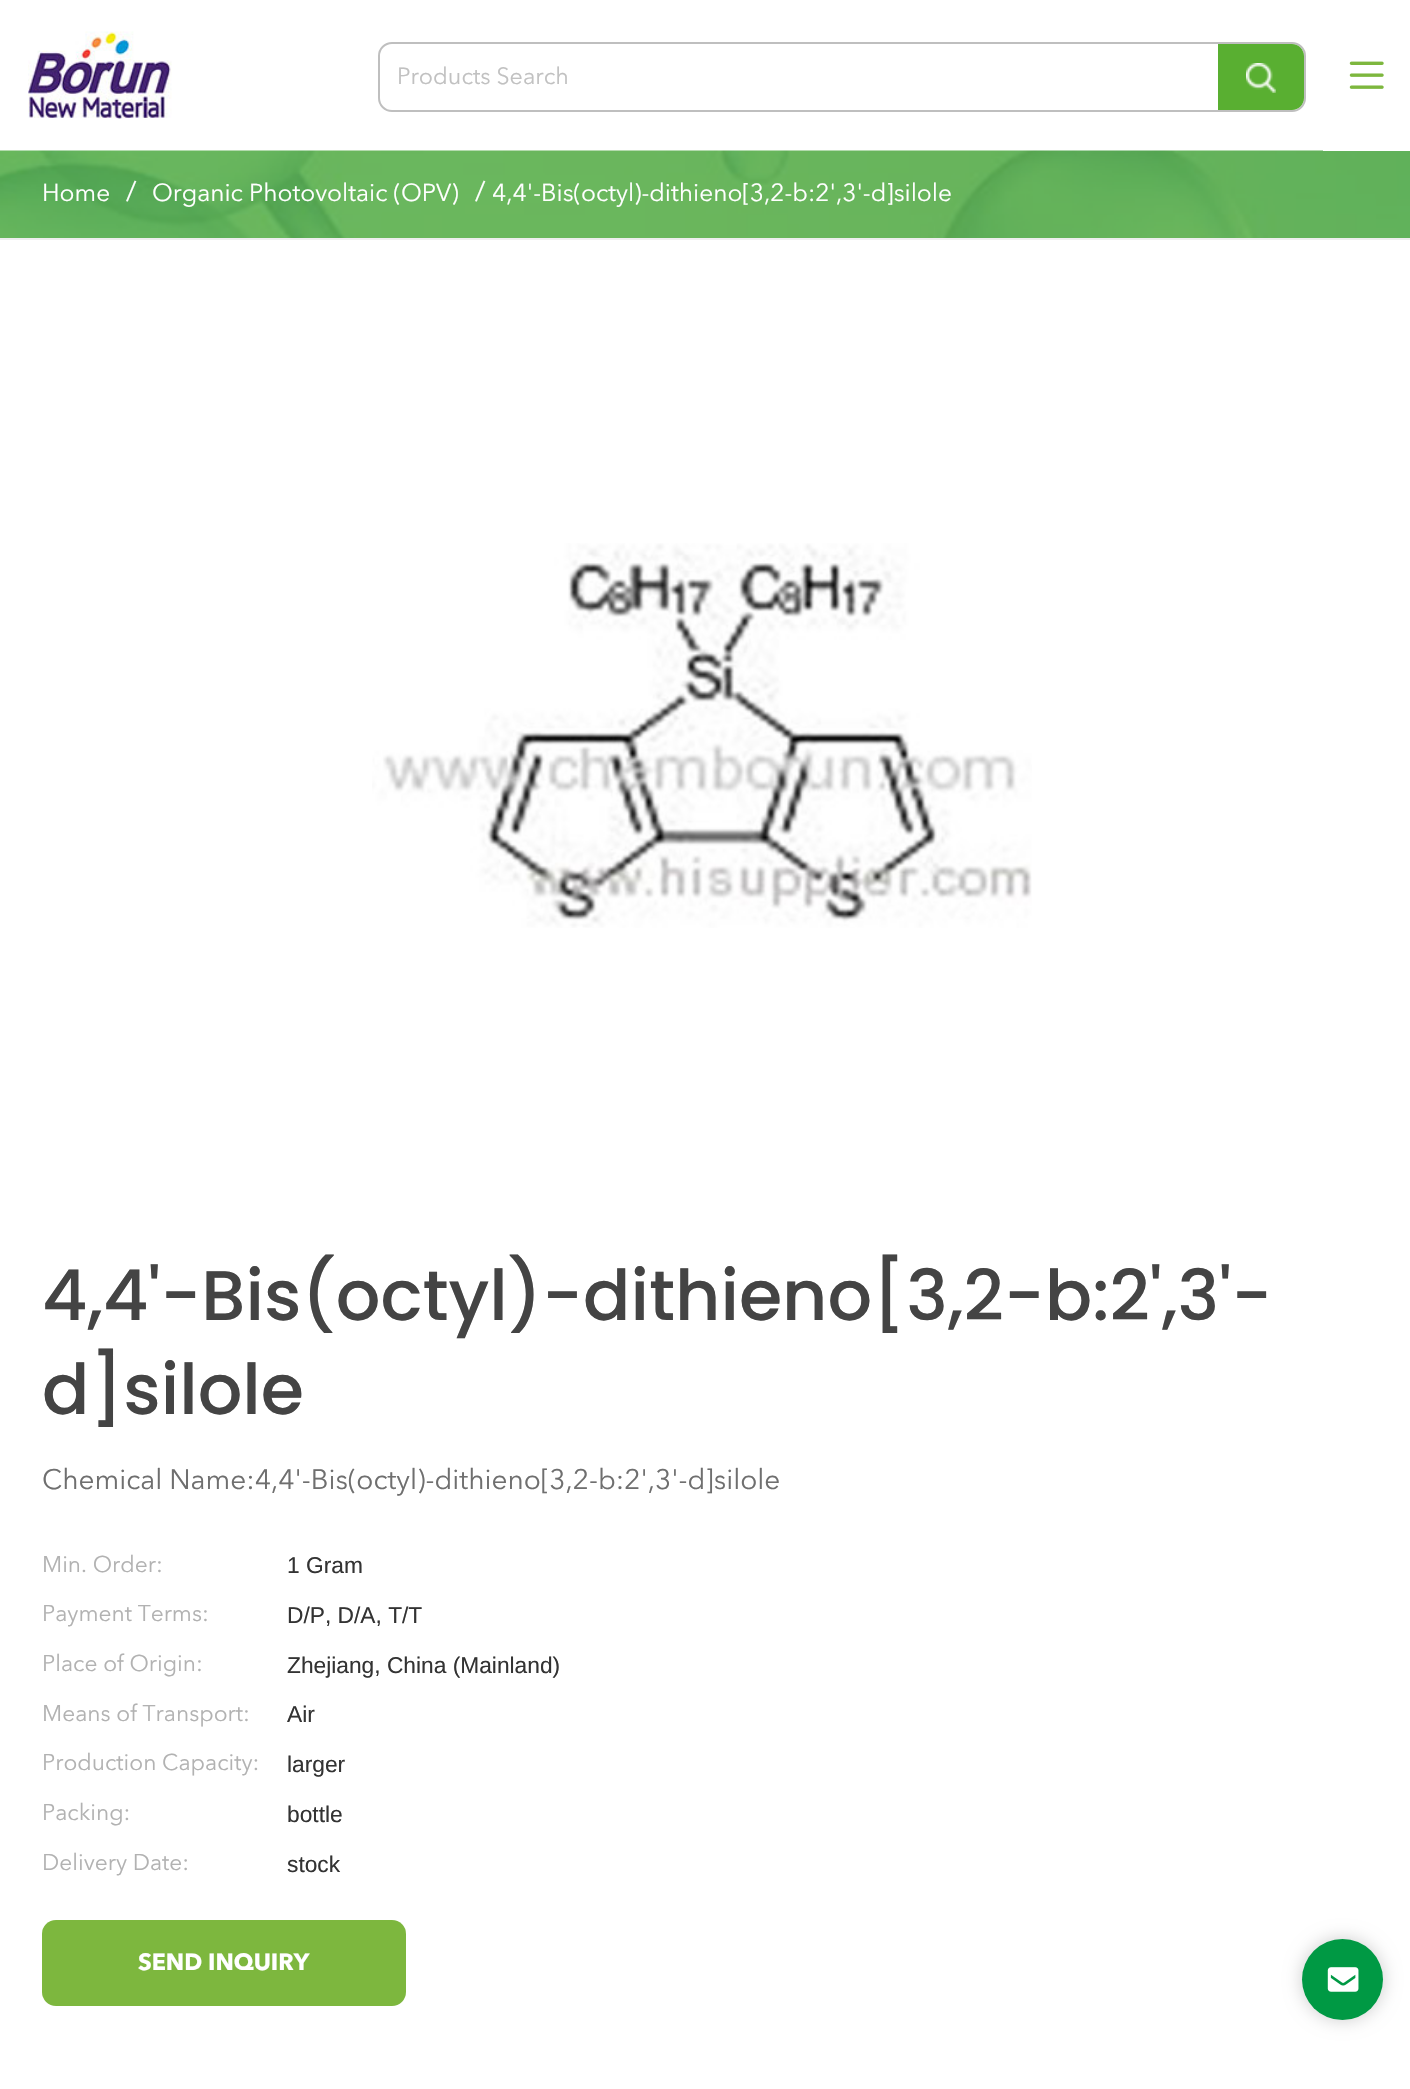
#include "include/core/SkBlurTypes.h"
#include "include/core/SkCanvas.h"
#include "include/core/SkData.h"
#include "include/core/SkFont.h"
#include "include/core/SkFontMgr.h"
#include "include/core/SkImage.h"
#include "include/core/SkMaskFilter.h"
#include "include/core/SkPaint.h"
#include "include/core/SkPathBuilder.h"
#include "include/core/SkTextBlob.h"
#include "include/effects/SkDashPathEffect.h"
#include "include/effects/SkGradientShader.h"
#include "include/utils/SkParsePath.h"

extern sk_sp<SkFontMgr> fontMgr;

static SkFont font(const char* family, int weight, float size, bool italic = false) {
    SkFontStyle style(weight, SkFontStyle::kNormal_Width,
        italic ? SkFontStyle::kItalic_Slant : SkFontStyle::kUpright_Slant);
    SkFont result(fontMgr->matchFamilyStyle(family, style), size);
    result.setSubpixel(true);
    return result;
}

static void drawLabel(SkCanvas* canvas, const char* s, float x, float y, const SkFont& font, SkColor color) {
    SkPaint ink(SkColor4f::FromColor(color));
    ink.setAntiAlias(true);
    canvas->drawString(s, x, y, font, ink);
}

static void fillRect(SkCanvas* canvas, float x, float y, float w, float h, SkColor color) {
    SkPaint ink(SkColor4f::FromColor(color));
    ink.setAntiAlias(true);
    canvas->drawRect(SkRect::MakeXYWH(x, y, w, h), ink);
}

static void fillRRect(SkCanvas* canvas, float x, float y, float w, float h, float radius, SkColor color) {
    SkPaint ink(SkColor4f::FromColor(color));
    ink.setAntiAlias(true);
    canvas->drawRoundRect(SkRect::MakeXYWH(x, y, w, h), radius, radius, ink);
}

static void drawPhoto(SkCanvas* canvas, const char* path, float x, float y, float w, float h) {
    auto image = SkImages::DeferredFromEncodedData(SkData::MakeFromFileName(path));
    canvas->drawImageRect(image, SkRect::MakeXYWH(x, y, w, h), SkSamplingOptions());
}

static SkPath parsePath(const char* data, bool evenOdd = false) {
    SkPath result = *SkParsePath::FromSVGString(data);
    if (evenOdd) result.setFillType(SkPathFillType::kEvenOdd);
    return result;
}

void draw(SkCanvas* canvas) {
    SkPaint paint;
    paint.setAntiAlias(true);
    canvas->clear(0xFFFFFFFF);
    drawPhoto(canvas, "assets/img1.png", 28, 31, 144, 88);
    paint.setStroke(true);
    paint.setStrokeWidth(2);
    paint.setColor(0xFFBFBFBF);
    canvas->drawRoundRect(SkRect::MakeXYWH(379, 43, 926, 68), 13, 13, paint);
    SkFont font1 = font("Avenir Next", 400, 23.25f);
    drawLabel(canvas, "Products Search", 397, 84, font1, 0xFFC1C1C1);
    paint.setStroke(false);
    paint.setColor(0xFF59AF31);
    canvas->drawPath(parsePath("M1218 44H1292C1298.5 44 1304 49.5 1304 56V98C1304 104.5 1298.5 110 1292 110H1218Z"), paint);
    drawPhoto(canvas, "assets/img2.png", 1246, 63, 30, 30);
    drawPhoto(canvas, "assets/img4.png", 0, 150, 1410, 88);
    fillRect(canvas, 1323, 150, 87, 1, 0xFFFFFFFF);
    drawPhoto(canvas, "assets/img3.png", 1349, 61, 35, 28);
    fillRect(canvas, 0, 238, 1410, 2, 0xFFEEEEEE);
    SkFont font2 = font("Avenir Next", 400, 24.5f);
    drawLabel(canvas, "Home", 42, 201, font2, 0xFFFFFFFF);
    SkFont font3 = font("Avenir Next", 400, 28);
    drawLabel(canvas, "/", 126, 201, font3, 0xFFFFFFFF);
    drawLabel(canvas, "Organic Photovoltaic (OPV)", 152, 201, font2, 0xFFFFFFFF);
    drawLabel(canvas, "/", 475, 201, font3, 0xFFFFFFFF);
    drawLabel(canvas, "4,4'-Bis(octyl)-dithieno[3,2-b:2',3'-d]silole", 492, 201, font2, 0xFFFFFFFF);
    drawPhoto(canvas, "assets/img5.png", 372, 543, 660, 385);
    SkFont font4 = font("Poppins", 500, 70);
    drawLabel(canvas, "4,4'-Bis(octyl)-dithieno[3,2-b:2',3'-", 42, 1320, font4, 0xFF444444);
    drawLabel(canvas, "d]silole", 42, 1414, font4, 0xFF444444);
    drawLabel(canvas, "Chemical Name:4,4'-Bis(octyl)-dithieno[3,2-b:2',3'-d]silole", 42, 1489, font3, 0xFF6F6F6F);
    SkFont font5 = font("Avenir Next", 400, 22.75f);
    drawLabel(canvas, "Min. Order:", 42, 1572, font5, 0xFFB2B2B2);
    SkFont font6 = font("Liberation Sans", 400, 22.75f);
    drawLabel(canvas, "1 Gram", 287, 1573, font6, 0xFF333333);
    drawLabel(canvas, "Payment Terms:", 42, 1621, font5, 0xFFB2B2B2);
    drawLabel(canvas, "D/P, D/A, T/T", 287, 1623, font6, 0xFF333333);
    drawLabel(canvas, "Place of Origin:", 42, 1671, font5, 0xFFB2B2B2);
    drawLabel(canvas, "Zhejiang, China (Mainland)", 287, 1673, font6, 0xFF333333);
    drawLabel(canvas, "Means of Transport:", 42, 1721, font5, 0xFFB2B2B2);
    drawLabel(canvas, "Air", 287, 1722, font6, 0xFF333333);
    drawLabel(canvas, "Production Capacity:", 42, 1770, font5, 0xFFB2B2B2);
    drawLabel(canvas, "larger", 287, 1772, font6, 0xFF333333);
    drawLabel(canvas, "Packing:", 42, 1820, font5, 0xFFB2B2B2);
    drawLabel(canvas, "bottle", 287, 1822, font6, 0xFF333333);
    drawLabel(canvas, "Delivery Date:", 42, 1870, font5, 0xFFB2B2B2);
    drawLabel(canvas, "stock", 287, 1872, font6, 0xFF333333);
    fillRRect(canvas, 42, 1920, 364, 86, 14, 0xFF7DB73E);
    SkFont font7 = font("Avenir Next", 700, 23.25f);
    drawLabel(canvas, "SEND INQUIRY", 138, 1970, font7, 0xFFFFFFFF);
    paint.setColor(0x33000000);
    paint.setMaskFilter(SkMaskFilter::MakeBlur(kNormal_SkBlurStyle, 9));
    canvas->drawRoundRect(SkRect::MakeXYWH(1302, 1939, 81, 81), 40.5f, 40.5f, paint);
    paint.setMaskFilter(nullptr);
    paint.setColor(0xFF009944);
    canvas->drawCircle(1342.5f, 1979.5f, 40.5f, paint);
    drawPhoto(canvas, "assets/img6.png", 1327, 1967, 32, 25);
}
